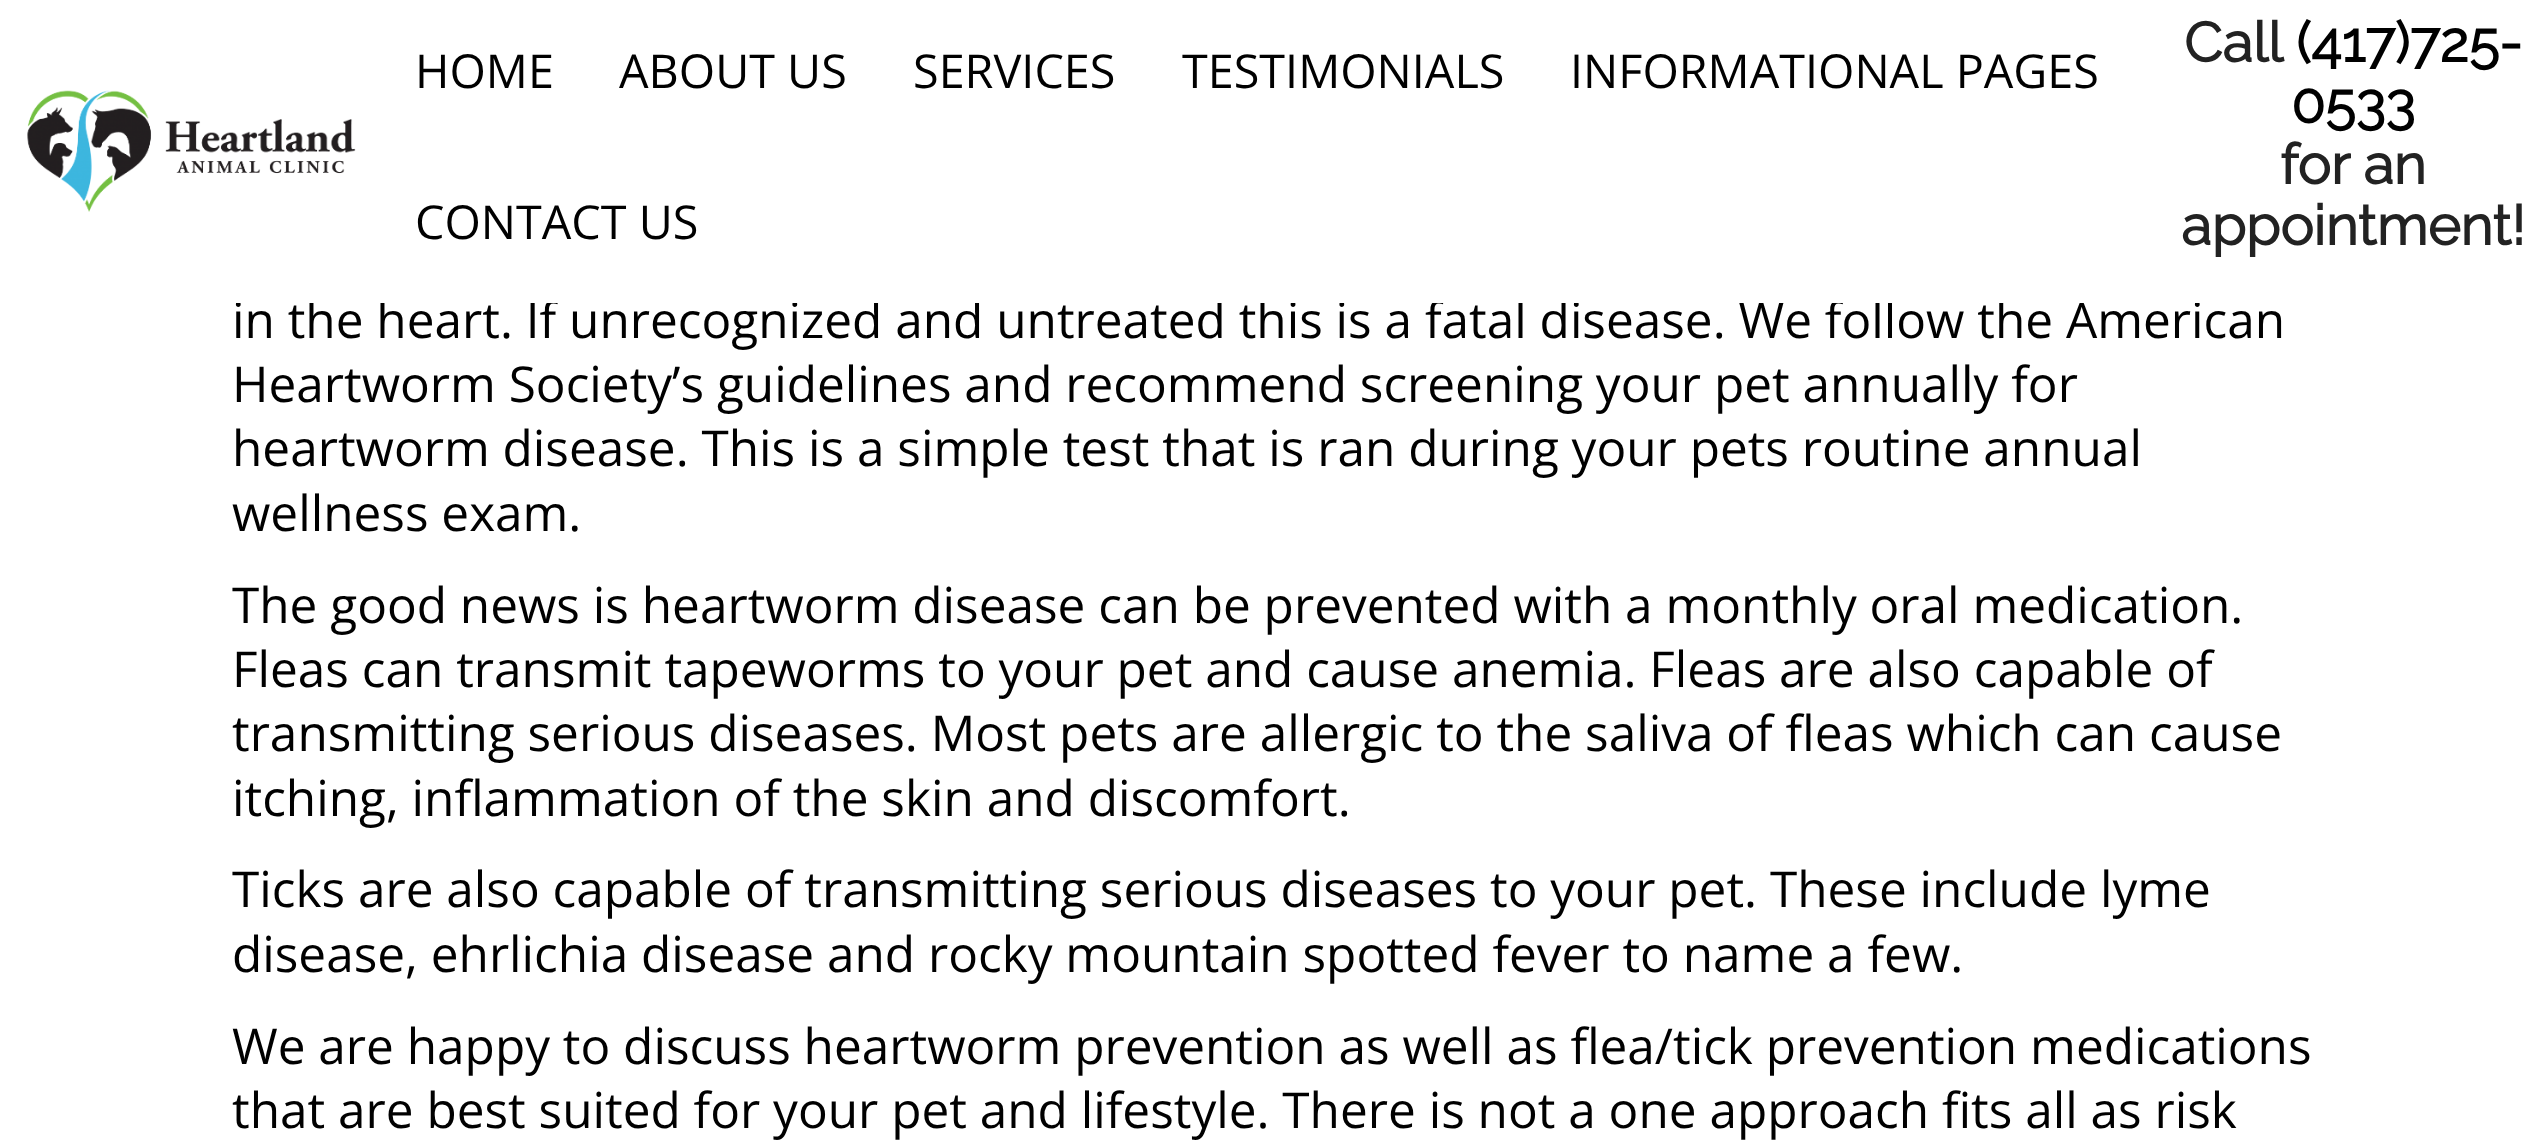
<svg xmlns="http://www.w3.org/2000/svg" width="2542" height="1141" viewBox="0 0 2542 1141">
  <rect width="100%" height="100%" fill="#ffffff"/>
  <text x="232" y="338" font-family="Open Sans" font-size="49.5" fill="#000000">in the heart. If unrecognized and untreated this is a fatal disease. We follow the American</text>
  <rect x="235" y="300" width="1965" height="3" fill="#ffffff"/>
  <image x="27" y="90" width="329" height="122" href="img1.png"/>
  <text x="415" y="88" font-family="Open Sans" font-size="46.75" fill="#000000">HOME</text>
  <text x="619" y="88" font-family="Open Sans" font-size="46.75" fill="#000000">ABOUT US</text>
  <text x="913" y="88" font-family="Open Sans" font-size="46.75" fill="#000000">SERVICES</text>
  <text x="1182" y="88" font-family="Open Sans" font-size="46.75" fill="#000000">TESTIMONIALS</text>
  <text x="1570" y="88" font-family="Open Sans" font-size="46.75" fill="#000000">INFORMATIONAL PAGES</text>
  <text x="415" y="239" font-family="Open Sans" font-size="46.75" fill="#000000">CONTACT US</text>
  <text x="2184" y="62" font-family="Raleway" font-size="55.75" font-weight="bold" fill="#222222">Call</text>
  <text x="2296" y="62" font-family="Raleway" font-size="55.75" font-weight="bold" fill="#000000">(417)725-</text>
  <text x="2291" y="123" font-family="Raleway" font-size="55.75" font-weight="bold" fill="#000000">0533</text>
  <text x="2280" y="184" font-family="Raleway" font-size="55.75" font-weight="bold" fill="#222222">for an</text>
  <text x="2181" y="245" font-family="Raleway" font-size="55.75" font-weight="bold" fill="#222222">appointment!</text>
  <text x="232" y="402" font-family="Open Sans" font-size="49.5" fill="#000000">Heartworm Society’s guidelines and recommend screening your pet annually for</text>
  <text x="232" y="466" font-family="Open Sans" font-size="49.5" fill="#000000">heartworm disease. This is a simple test that is ran during your pets routine annual</text>
  <text x="232" y="531" font-family="Open Sans" font-size="49.5" fill="#000000">wellness exam.</text>
  <text x="232" y="623" font-family="Open Sans" font-size="49.5" fill="#000000">The good news is heartworm disease can be prevented with a monthly oral medication.</text>
  <text x="232" y="687" font-family="Open Sans" font-size="49.5" fill="#000000">Fleas can transmit tapeworms to your pet and cause anemia. Fleas are also capable of</text>
  <text x="232" y="751" font-family="Open Sans" font-size="49.5" fill="#000000">transmitting serious diseases. Most pets are allergic to the saliva of fleas which can cause</text>
  <text x="232" y="816" font-family="Open Sans" font-size="49.5" fill="#000000">itching, inflammation of the skin and discomfort.</text>
  <text x="232" y="907" font-family="Open Sans" font-size="49.5" fill="#000000">Ticks are also capable of transmitting serious diseases to your pet. These include lyme</text>
  <text x="232" y="972" font-family="Open Sans" font-size="49.5" fill="#000000">disease, ehrlichia disease and rocky mountain spotted fever to name a few.</text>
  <text x="232" y="1064" font-family="Open Sans" font-size="49.5" fill="#000000">We are happy to discuss heartworm prevention as well as flea/tick prevention medications</text>
  <text x="232" y="1128" font-family="Open Sans" font-size="49.5" fill="#000000">that are best suited for your pet and lifestyle. There is not a one approach fits all as risk</text>
</svg>
